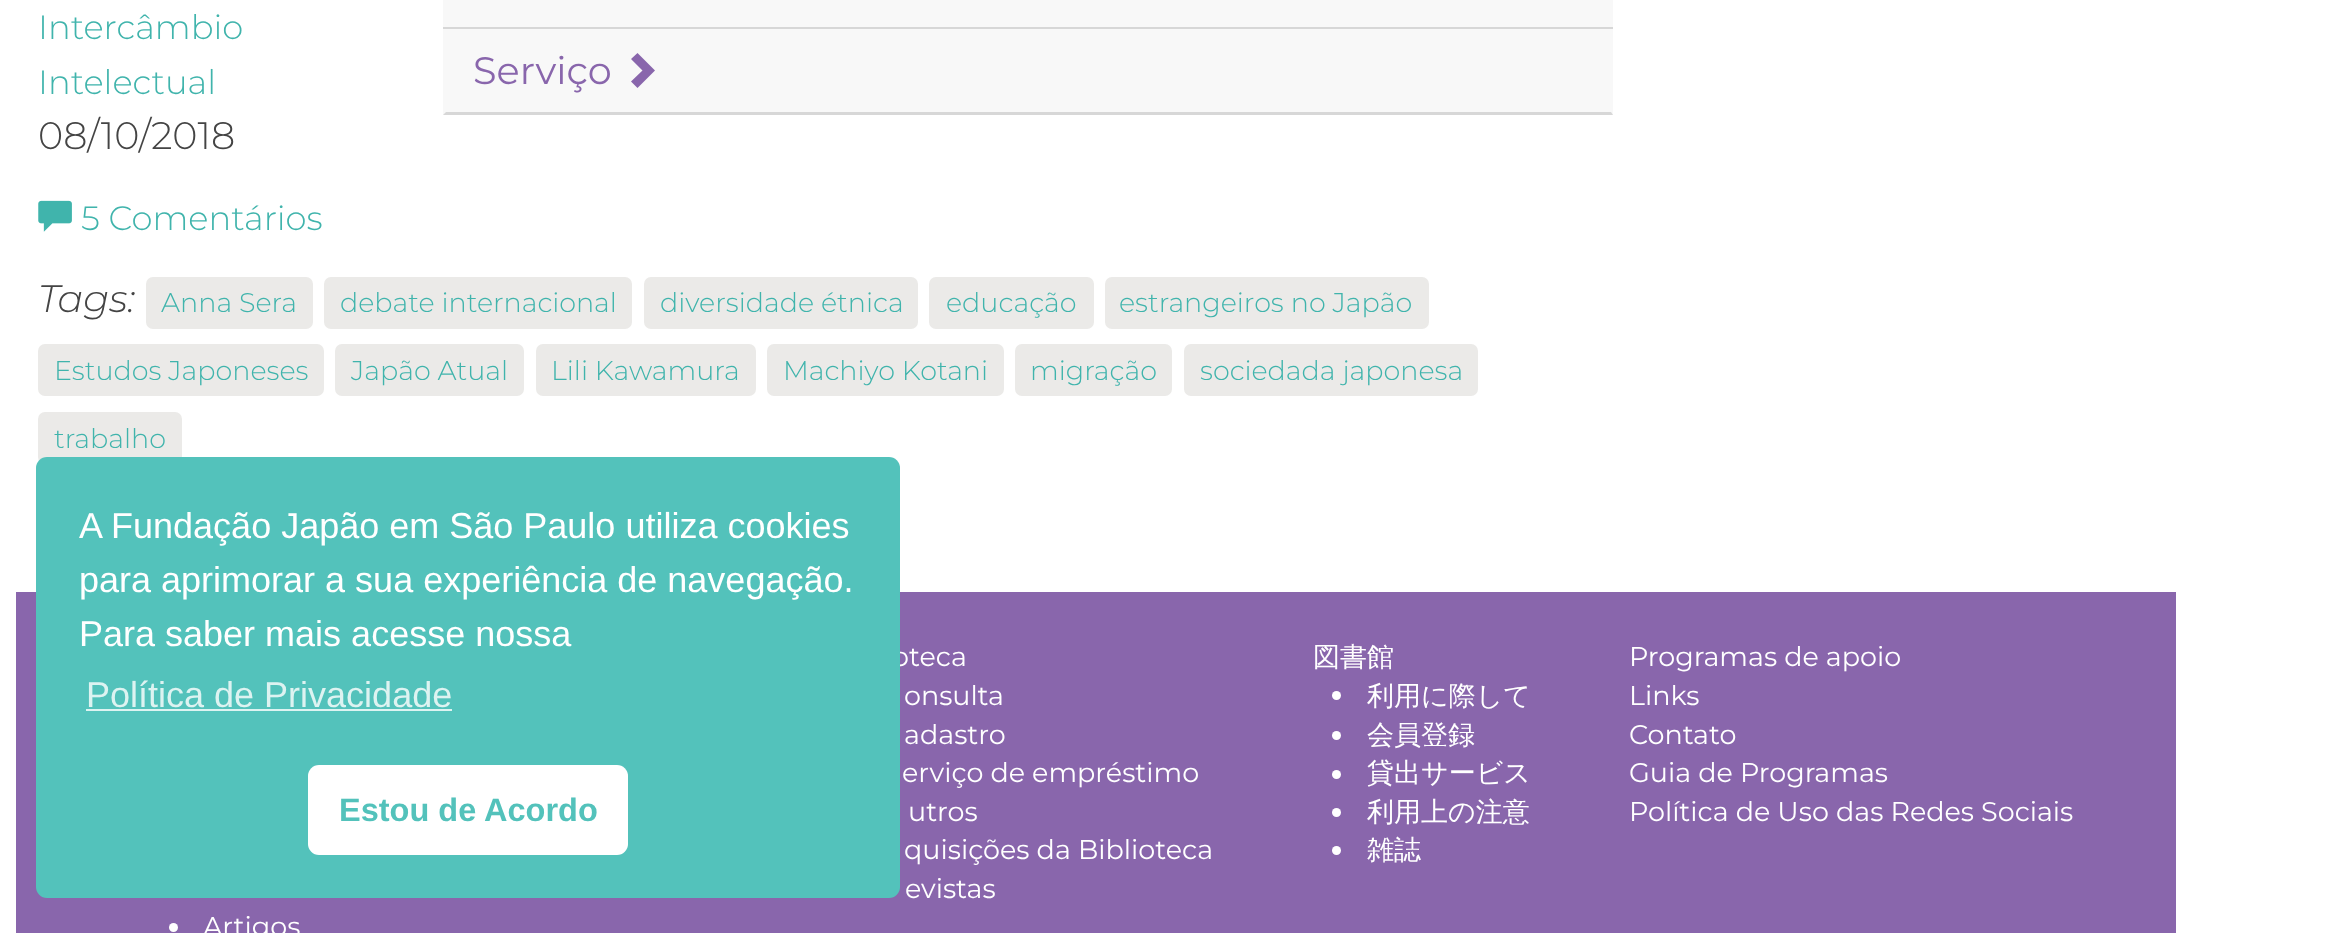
<svg xmlns="http://www.w3.org/2000/svg" width="2351" height="933" viewBox="0 0 2351 933">
  <rect width="100%" height="100%" fill="#ffffff"/>
  <text x="38" y="39" font-family="Montserrat" font-size="33.75" font-weight="300" fill="#40b4ac">Intercâmbio</text>
  <text x="38" y="94" font-family="Montserrat" font-size="33.75" font-weight="300" fill="#40b4ac">Intelectual</text>
  <text x="38" y="149" font-family="Montserrat" font-size="38.25" font-weight="300" fill="#444444">08/10/2018</text>
  <image x="38" y="200" width="34" height="32" href="img1.png"/>
  <text x="81" y="230" font-family="Montserrat" font-size="33.75" font-weight="300" fill="#40b4ac">5 Comentários</text>
  <rect x="443" y="0" width="1170" height="27" fill="#f8f8f8"/>
  <rect x="443" y="27" width="1170" height="2" fill="#d7d7d7"/>
  <rect x="443" y="29" width="1170" height="86" fill="#f8f8f8"/>
  <path d="M1613 115H443L446 112H1611Z" fill="#d7d7d7"/>
  <text x="473" y="84" font-family="Montserrat" font-size="38.25" fill="#8966ac">Serviço</text>
  <path d="M655 70.5L637.5 88L631 81.5L642.5 70.5L631 59L637.5 53Z" fill="#8966ac"/>
  <text x="38" y="312" font-family="Montserrat" font-size="38.25" font-weight="300" font-style="italic" fill="#444444">Tags:</text>
  <rect x="146" y="277" width="167" height="52" rx="7" fill="#ebeae8"/>
  <text x="161" y="312" font-family="Montserrat" font-size="27" font-weight="300" fill="#40b4ac">Anna Sera</text>
  <rect x="324" y="277" width="308" height="52" rx="7" fill="#ebeae8"/>
  <text x="340" y="312" font-family="Montserrat" font-size="27" font-weight="300" fill="#40b4ac">debate internacional</text>
  <rect x="644" y="277" width="274" height="52" rx="7" fill="#ebeae8"/>
  <text x="660" y="312" font-family="Montserrat" font-size="27" font-weight="300" fill="#40b4ac">diversidade étnica</text>
  <rect x="929" y="277" width="165" height="52" rx="7" fill="#ebeae8"/>
  <text x="946" y="312" font-family="Montserrat" font-size="27" font-weight="300" fill="#40b4ac">educação</text>
  <rect x="1105" y="277" width="324" height="52" rx="7" fill="#ebeae8"/>
  <text x="1119" y="312" font-family="Montserrat" font-size="27" font-weight="300" fill="#40b4ac">estrangeiros no Japão</text>
  <rect x="38" y="344" width="286" height="52" rx="7" fill="#ebeae8"/>
  <text x="54" y="380" font-family="Montserrat" font-size="27" font-weight="300" fill="#40b4ac">Estudos Japoneses</text>
  <rect x="335" y="344" width="189" height="52" rx="7" fill="#ebeae8"/>
  <text x="351" y="380" font-family="Montserrat" font-size="27" font-weight="300" fill="#40b4ac">Japão Atual</text>
  <rect x="536" y="344" width="220" height="52" rx="7" fill="#ebeae8"/>
  <text x="551" y="380" font-family="Montserrat" font-size="27" font-weight="300" fill="#40b4ac">Lili Kawamura</text>
  <rect x="767" y="344" width="237" height="52" rx="7" fill="#ebeae8"/>
  <text x="783" y="380" font-family="Montserrat" font-size="27" font-weight="300" fill="#40b4ac">Machiyo Kotani</text>
  <rect x="1015" y="344" width="157" height="52" rx="7" fill="#ebeae8"/>
  <text x="1030" y="380" font-family="Montserrat" font-size="27" font-weight="300" fill="#40b4ac">migração</text>
  <rect x="1184" y="344" width="294" height="52" rx="7" fill="#ebeae8"/>
  <text x="1200" y="380" font-family="Montserrat" font-size="27" font-weight="300" fill="#40b4ac">sociedada japonesa</text>
  <rect x="38" y="412" width="144" height="52" rx="7" fill="#ebeae8"/>
  <text x="54" y="448" font-family="Montserrat" font-size="27" font-weight="300" fill="#40b4ac">trabalho</text>
  <rect x="16" y="592" width="2160" height="341" fill="#8966ac"/>
  <text x="892" y="666" font-family="Montserrat" font-size="27" fill="#ffffff">oteca</text>
  <rect x="36" y="457" width="864" height="441" rx="11" fill="#53c2bb"/>
  <text x="79" y="538" font-family="Liberation Sans" font-size="36" fill="#ffffff">A Fundação Japão em São Paulo utiliza cookies</text>
  <text x="79" y="592" font-family="Liberation Sans" font-size="36" fill="#ffffff">para aprimorar a sua experiência de navegação.</text>
  <text x="79" y="646" font-family="Liberation Sans" font-size="36" fill="#ffffff">Para saber mais acesse nossa</text>
  <text x="86" y="707" font-family="Liberation Sans" font-size="36" fill="#ddf3f1">Política de Privacidade</text>
  <rect x="86" y="709" width="366" height="2" fill="#ddf3f1"/>
  <rect x="308" y="765" width="320" height="90" rx="11" fill="#ffffff"/>
  <text x="339" y="821" font-family="Liberation Sans" font-size="32.5" font-weight="bold" fill="#53c2bb">Estou de Acordo</text>
  <text x="904" y="705" font-family="Montserrat" font-size="27" fill="#ffffff">onsulta</text>
  <text x="904" y="744" font-family="Montserrat" font-size="27" fill="#ffffff">adastro</text>
  <text x="902" y="782" font-family="Montserrat" font-size="27" fill="#ffffff">erviço de empréstimo</text>
  <text x="908" y="821" font-family="Montserrat" font-size="27" fill="#ffffff">utros</text>
  <text x="904" y="859" font-family="Montserrat" font-size="27" fill="#ffffff">quisições da Biblioteca</text>
  <text x="905" y="898" font-family="Montserrat" font-size="27" fill="#ffffff">evistas</text>
  <text x="1313" y="666" font-family="WenQuanYi Zen Hei" font-size="27" font-weight="500" fill="#ffffff">図書館</text>
  <circle cx="1336.5" cy="695.5" r="4.5" fill="#ffffff"/>
  <text x="1367" y="705" font-family="WenQuanYi Zen Hei" font-size="27" font-weight="500" fill="#ffffff">利用に際して</text>
  <circle cx="1336.5" cy="735.5" r="4.5" fill="#ffffff"/>
  <text x="1367" y="744" font-family="WenQuanYi Zen Hei" font-size="27" font-weight="500" fill="#ffffff">会員登録</text>
  <circle cx="1336.5" cy="774.5" r="4.5" fill="#ffffff"/>
  <text x="1367" y="782" font-family="WenQuanYi Zen Hei" font-size="27" font-weight="500" fill="#ffffff">貸出サービス</text>
  <circle cx="1336.5" cy="812.5" r="4.5" fill="#ffffff"/>
  <text x="1367" y="821" font-family="WenQuanYi Zen Hei" font-size="27" font-weight="500" fill="#ffffff">利用上の注意</text>
  <circle cx="1336.5" cy="850.5" r="4.5" fill="#ffffff"/>
  <text x="1367" y="859" font-family="WenQuanYi Zen Hei" font-size="27" font-weight="500" fill="#ffffff">雑誌</text>
  <text x="1629" y="666" font-family="Montserrat" font-size="27" fill="#ffffff">Programas de apoio</text>
  <text x="1629" y="705" font-family="Montserrat" font-size="27" fill="#ffffff">Links</text>
  <text x="1629" y="744" font-family="Montserrat" font-size="27" fill="#ffffff">Contato</text>
  <text x="1629" y="782" font-family="Montserrat" font-size="27" fill="#ffffff">Guia de Programas</text>
  <text x="1629" y="821" font-family="Montserrat" font-size="27" fill="#ffffff">Política de Uso das Redes Sociais</text>
  <circle cx="173.5" cy="927.5" r="4.5" fill="#ffffff"/>
  <text x="203" y="936" font-family="Montserrat" font-size="27" fill="#ffffff">Artigos</text>
</svg>
